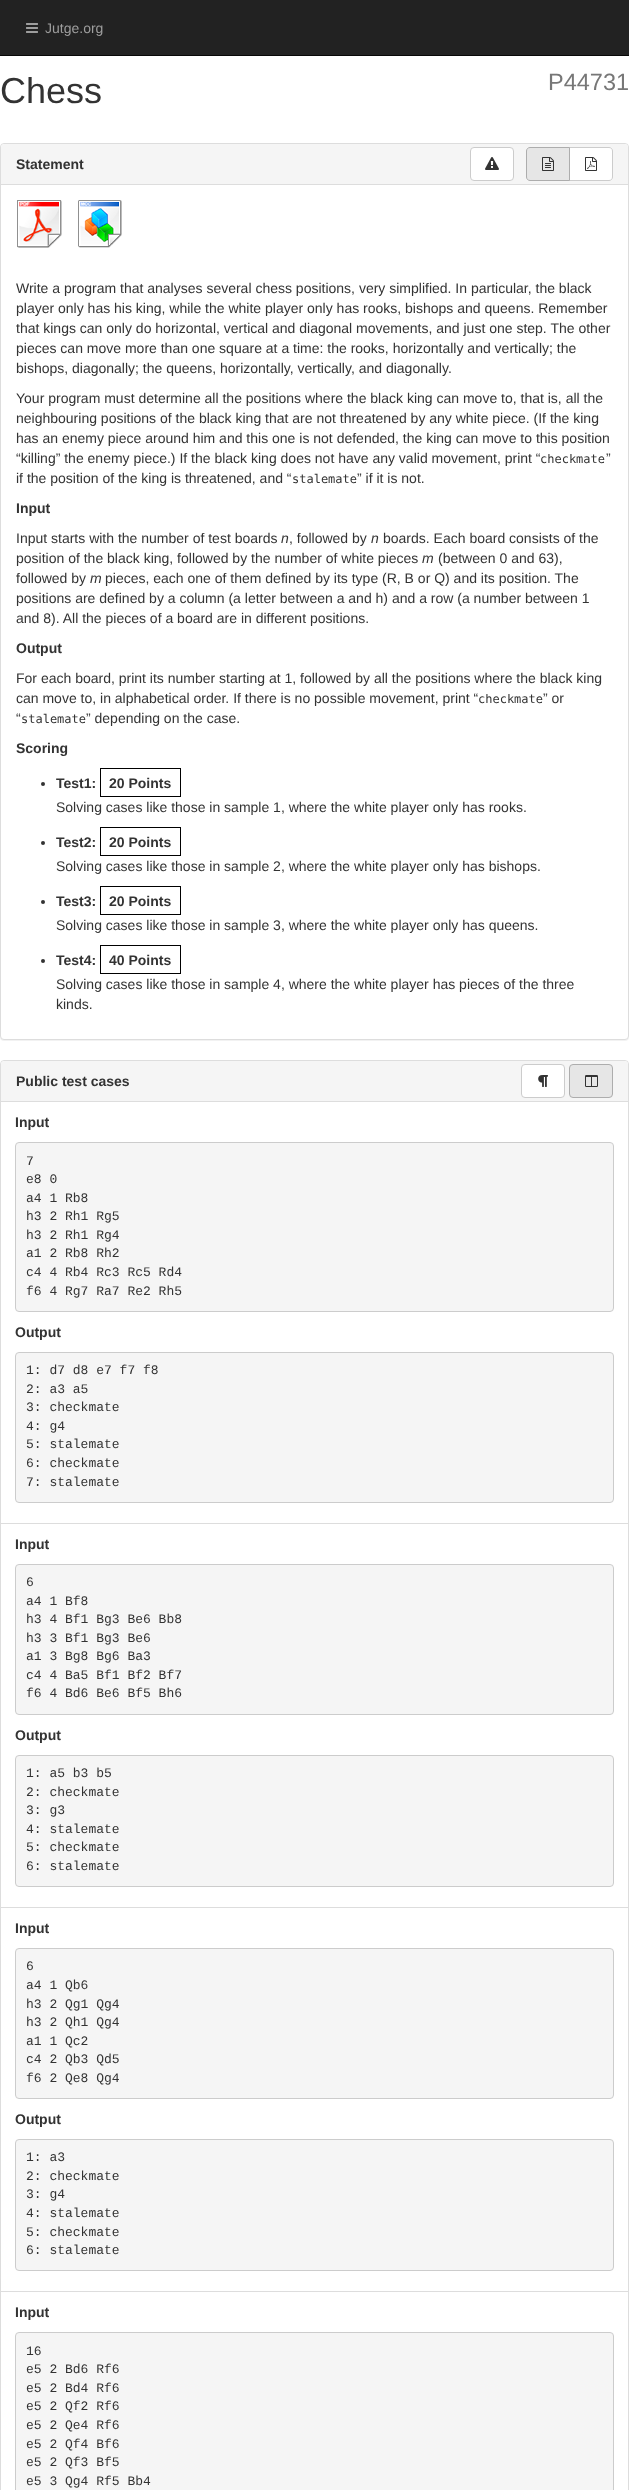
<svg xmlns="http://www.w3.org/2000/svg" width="629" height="2490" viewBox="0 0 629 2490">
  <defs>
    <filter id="blur1" x="-50%" y="-200%" width="200%" height="500%"><feGaussianBlur stdDeviation="0.5"/></filter>
  </defs>
  <rect width="100%" height="100%" fill="#ffffff"/>
  <rect x="0" y="0" width="629" height="55" fill="#222222"/>
  <rect x="0" y="55" width="629" height="1" fill="#080808"/>
  <image x="26" y="23" width="12" height="10" href="img1.png"/>
  <text x="45" y="33" font-family="Liberation Sans" font-size="14" fill="#9d9d9d">Jutge.org</text>
  <text x="0" y="103" font-family="Liberation Sans" font-size="36" fill="#333333">Chess</text>
  <text x="548" y="90" font-family="Liberation Sans" font-size="23.5" fill="#777777">P44731</text>
  <rect x="0" y="144" width="629" height="897" rx="4" fill="#000000" fill-opacity="0.05" filter="url(#blur1)"/>
  <rect x="0.5" y="143.5" width="628" height="896" rx="3.5" fill="#ffffff" stroke="#dddddd"/>
  <path d="M4 144H625C626.5 144 628 145.5 628 147V185H1V147C1 145.5 2.5 144 4 144Z" fill="#f5f5f5"/>
  <rect x="1" y="184" width="627" height="1" fill="#dddddd"/>
  <text x="16" y="169" font-family="Liberation Sans" font-size="14" font-weight="bold" fill="#333333">Statement</text>
  <rect x="470.5" y="147.5" width="43" height="33" rx="3.5" fill="#ffffff" stroke="#cccccc"/>
  <image x="485" y="157" width="14" height="13" href="img2.png"/>
  <path d="M569.5 147.5H609C611 147.5 612.5 149 612.5 151V177C612.5 179 611 180.5 609 180.5H569.5Z" fill="#ffffff" stroke="#cccccc"/>
  <path d="M530 147.5H569.5V180.5H530C528 180.5 526.5 179 526.5 177V151C526.5 149 528 147.5 530 147.5Z" fill="#e6e6e6" stroke="#adadad"/>
  <image x="542" y="157" width="12" height="14" href="img3.png"/>
  <image x="585" y="157" width="12" height="14" href="img4.png"/>
  <image x="17" y="200" width="45" height="48" href="img5.png"/>
  <image x="78" y="200" width="44" height="48" href="img6.png"/>
  <text x="16" y="293" font-family="Liberation Sans" font-size="14" fill="#333333">Write a program that analyses several chess positions, very simplified. In particular, the black</text>
  <text x="16" y="313" font-family="Liberation Sans" font-size="14" fill="#333333">player only has his king, while the white player only has rooks, bishops and queens. Remember</text>
  <text x="16" y="333" font-family="Liberation Sans" font-size="14" fill="#333333">that kings can only do horizontal, vertical and diagonal movements, and just one step. The other</text>
  <text x="16" y="353" font-family="Liberation Sans" font-size="14" fill="#333333">pieces can move more than one square at a time: the rooks, horizontally and vertically; the</text>
  <text x="16" y="373" font-family="Liberation Sans" font-size="14" fill="#333333">bishops, diagonally; the queens, horizontally, vertically, and diagonally.</text>
  <text x="16" y="403" font-family="Liberation Sans" font-size="14" fill="#333333">Your program must determine all the positions where the black king can move to, that is, all the</text>
  <text x="16" y="423" font-family="Liberation Sans" font-size="14" fill="#333333">neighbouring positions of the black king that are not threatened by any white piece. (If the king</text>
  <text x="16" y="443" font-family="Liberation Sans" font-size="14" fill="#333333">has an enemy piece around him and this one is not defended, the king can move to this position</text>
  <text x="16" y="463" font-family="Liberation Sans" font-size="14" fill="#333333">“killing” the enemy piece.) If the black king does not have any valid movement, print “</text>
  <text x="540" y="463" font-family="DejaVu Sans Mono" font-size="12" fill="#333333">checkmate</text>
  <text x="606" y="463" font-family="Liberation Sans" font-size="14" fill="#333333">”</text>
  <text x="16" y="483" font-family="Liberation Sans" font-size="14" fill="#333333">if the position of the king is threatened, and “</text>
  <text x="292" y="483" font-family="DejaVu Sans Mono" font-size="12" fill="#333333">stalemate</text>
  <text x="357" y="483" font-family="Liberation Sans" font-size="14" fill="#333333">” if it is not.</text>
  <text x="16" y="513" font-family="Liberation Sans" font-size="14" font-weight="bold" fill="#333333">Input</text>
  <text x="16" y="543" font-family="Liberation Sans" font-size="14" fill="#333333">Input starts with the number of test boards</text>
  <text x="281" y="543" font-family="Liberation Sans" font-size="14" font-style="italic" fill="#333333">n</text>
  <text x="289" y="543" font-family="Liberation Sans" font-size="14" fill="#333333">, followed by</text>
  <text x="371" y="543" font-family="Liberation Sans" font-size="14" font-style="italic" fill="#333333">n</text>
  <text x="383" y="543" font-family="Liberation Sans" font-size="14" fill="#333333">boards. Each board consists of the</text>
  <text x="16" y="563" font-family="Liberation Sans" font-size="14" fill="#333333">position of the black king, followed by the number of white pieces</text>
  <text x="422" y="563" font-family="Liberation Sans" font-size="14" font-style="italic" fill="#333333">m</text>
  <text x="438" y="563" font-family="Liberation Sans" font-size="14" fill="#333333">(between 0 and 63),</text>
  <text x="16" y="583" font-family="Liberation Sans" font-size="14" fill="#333333">followed by</text>
  <text x="90" y="583" font-family="Liberation Sans" font-size="14" font-style="italic" fill="#333333">m</text>
  <text x="105" y="583" font-family="Liberation Sans" font-size="14" fill="#333333">pieces, each one of them defined by its type (R, B or Q) and its position. The</text>
  <text x="16" y="603" font-family="Liberation Sans" font-size="14" fill="#333333">positions are defined by a column (a letter between a and h) and a row (a number between 1</text>
  <text x="16" y="623" font-family="Liberation Sans" font-size="14" fill="#333333">and 8). All the pieces of a board are in different positions.</text>
  <text x="16" y="653" font-family="Liberation Sans" font-size="14" font-weight="bold" fill="#333333">Output</text>
  <text x="16" y="683" font-family="Liberation Sans" font-size="14" fill="#333333">For each board, print its number starting at 1, followed by all the positions where the black king</text>
  <text x="16" y="703" font-family="Liberation Sans" font-size="14" fill="#333333">can move to, in alphabetical order. If there is no possible movement, print “</text>
  <text x="478" y="703" font-family="DejaVu Sans Mono" font-size="12" fill="#333333">checkmate</text>
  <text x="543" y="703" font-family="Liberation Sans" font-size="14" fill="#333333">” or</text>
  <text x="16" y="723" font-family="Liberation Sans" font-size="14" fill="#333333">“</text>
  <text x="21" y="723" font-family="DejaVu Sans Mono" font-size="12" fill="#333333">stalemate</text>
  <text x="86" y="723" font-family="Liberation Sans" font-size="14" fill="#333333">” depending on the case.</text>
  <text x="16" y="753" font-family="Liberation Sans" font-size="14" font-weight="bold" fill="#333333">Scoring</text>
  <circle cx="43" cy="784" r="2" fill="#333333"/>
  <text x="56" y="788" font-family="Liberation Sans" font-size="14" font-weight="bold" fill="#333333">Test1:</text>
  <rect x="100.5" y="768.5" width="80" height="28" fill="none" stroke="#000000"/>
  <text x="109" y="788" font-family="Liberation Sans" font-size="14" font-weight="bold" fill="#333333">‍20 Points ‍</text>
  <text x="56" y="812" font-family="Liberation Sans" font-size="14" fill="#333333">Solving cases like those in sample 1, where the white player only has rooks.</text>
  <circle cx="43" cy="843" r="2" fill="#333333"/>
  <text x="56" y="847" font-family="Liberation Sans" font-size="14" font-weight="bold" fill="#333333">Test2:</text>
  <rect x="100.5" y="827.5" width="80" height="28" fill="none" stroke="#000000"/>
  <text x="109" y="847" font-family="Liberation Sans" font-size="14" font-weight="bold" fill="#333333">‍20 Points ‍</text>
  <text x="56" y="871" font-family="Liberation Sans" font-size="14" fill="#333333">Solving cases like those in sample 2, where the white player only has bishops.</text>
  <circle cx="43" cy="902" r="2" fill="#333333"/>
  <text x="56" y="906" font-family="Liberation Sans" font-size="14" font-weight="bold" fill="#333333">Test3:</text>
  <rect x="100.5" y="886.5" width="80" height="28" fill="none" stroke="#000000"/>
  <text x="109" y="906" font-family="Liberation Sans" font-size="14" font-weight="bold" fill="#333333">‍20 Points ‍</text>
  <text x="56" y="930" font-family="Liberation Sans" font-size="14" fill="#333333">Solving cases like those in sample 3, where the white player only has queens.</text>
  <circle cx="43" cy="961" r="2" fill="#333333"/>
  <text x="56" y="965" font-family="Liberation Sans" font-size="14" font-weight="bold" fill="#333333">Test4:</text>
  <rect x="100.5" y="945.5" width="80" height="28" fill="none" stroke="#000000"/>
  <text x="109" y="965" font-family="Liberation Sans" font-size="14" font-weight="bold" fill="#333333">‍40 Points ‍</text>
  <text x="56" y="989" font-family="Liberation Sans" font-size="14" fill="#333333">Solving cases like those in sample 4, where the white player has pieces of the three</text>
  <text x="56" y="1009" font-family="Liberation Sans" font-size="14" fill="#333333">kinds.</text>
  <rect x="0.5" y="1060.5" width="628" height="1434" rx="3.5" fill="none" stroke="#dddddd"/>
  <path d="M4 1061H625C626.5 1061 628 1062.5 628 1064V1102H1V1064C1 1062.5 2.5 1061 4 1061Z" fill="#f5f5f5"/>
  <rect x="1" y="1101" width="627" height="1" fill="#dddddd"/>
  <text x="16" y="1086" font-family="Liberation Sans" font-size="14" font-weight="bold" fill="#333333">Public test cases</text>
  <rect x="521.5" y="1064.5" width="43" height="33" rx="3.5" fill="#ffffff" stroke="#cccccc"/>
  <image x="538" y="1075" width="10" height="12" href="img7.png"/>
  <rect x="569.5" y="1064.5" width="43" height="33" rx="3.5" fill="#e6e6e6" stroke="#adadad"/>
  <image x="585" y="1075" width="13" height="12" href="img8.png"/>
  <rect x="1" y="1523" width="627" height="1" fill="#dddddd"/>
  <text x="15" y="1127" font-family="Liberation Sans" font-size="14" font-weight="bold" fill="#333333">Input</text>
  <rect x="15.5" y="1142.5" width="598" height="169" rx="3.5" fill="#f5f5f5" stroke="#cccccc"/>
  <text x="26" y="1165" font-family="Liberation Mono" font-size="13" fill="#333333">7</text>
  <text x="26" y="1183" font-family="Liberation Mono" font-size="13" fill="#333333">e8 0</text>
  <text x="26" y="1202" font-family="Liberation Mono" font-size="13" fill="#333333">a4 1 Rb8</text>
  <text x="26" y="1220" font-family="Liberation Mono" font-size="13" fill="#333333">h3 2 Rh1 Rg5</text>
  <text x="26" y="1239" font-family="Liberation Mono" font-size="13" fill="#333333">h3 2 Rh1 Rg4</text>
  <text x="26" y="1257" font-family="Liberation Mono" font-size="13" fill="#333333">a1 2 Rb8 Rh2</text>
  <text x="26" y="1276" font-family="Liberation Mono" font-size="13" fill="#333333">c4 4 Rb4 Rc3 Rc5 Rd4</text>
  <text x="26" y="1295" font-family="Liberation Mono" font-size="13" fill="#333333">f6 4 Rg7 Ra7 Re2 Rh5</text>
  <text x="15" y="1337" font-family="Liberation Sans" font-size="14" font-weight="bold" fill="#333333">Output</text>
  <rect x="15.5" y="1352.5" width="598" height="150" rx="3.5" fill="#f5f5f5" stroke="#cccccc"/>
  <text x="26" y="1374" font-family="Liberation Mono" font-size="13" fill="#333333">1: d7 d8 e7 f7 f8</text>
  <text x="26" y="1393" font-family="Liberation Mono" font-size="13" fill="#333333">2: a3 a5</text>
  <text x="26" y="1411" font-family="Liberation Mono" font-size="13" fill="#333333">3: checkmate</text>
  <text x="26" y="1430" font-family="Liberation Mono" font-size="13" fill="#333333">4: g4</text>
  <text x="26" y="1448" font-family="Liberation Mono" font-size="13" fill="#333333">5: stalemate</text>
  <text x="26" y="1467" font-family="Liberation Mono" font-size="13" fill="#333333">6: checkmate</text>
  <text x="26" y="1486" font-family="Liberation Mono" font-size="13" fill="#333333">7: stalemate</text>
  <rect x="1" y="1907" width="627" height="1" fill="#dddddd"/>
  <text x="15" y="1549" font-family="Liberation Sans" font-size="14" font-weight="bold" fill="#333333">Input</text>
  <rect x="15.5" y="1564.5" width="598" height="150" rx="3.5" fill="#f5f5f5" stroke="#cccccc"/>
  <text x="26" y="1586" font-family="Liberation Mono" font-size="13" fill="#333333">6</text>
  <text x="26" y="1605" font-family="Liberation Mono" font-size="13" fill="#333333">a4 1 Bf8</text>
  <text x="26" y="1623" font-family="Liberation Mono" font-size="13" fill="#333333">h3 4 Bf1 Bg3 Be6 Bb8</text>
  <text x="26" y="1642" font-family="Liberation Mono" font-size="13" fill="#333333">h3 3 Bf1 Bg3 Be6</text>
  <text x="26" y="1660" font-family="Liberation Mono" font-size="13" fill="#333333">a1 3 Bg8 Bg6 Ba3</text>
  <text x="26" y="1679" font-family="Liberation Mono" font-size="13" fill="#333333">c4 4 Ba5 Bf1 Bf2 Bf7</text>
  <text x="26" y="1697" font-family="Liberation Mono" font-size="13" fill="#333333">f6 4 Bd6 Be6 Bf5 Bh6</text>
  <text x="15" y="1740" font-family="Liberation Sans" font-size="14" font-weight="bold" fill="#333333">Output</text>
  <rect x="15.5" y="1755.5" width="598" height="131" rx="3.5" fill="#f5f5f5" stroke="#cccccc"/>
  <text x="26" y="1777" font-family="Liberation Mono" font-size="13" fill="#333333">1: a5 b3 b5</text>
  <text x="26" y="1796" font-family="Liberation Mono" font-size="13" fill="#333333">2: checkmate</text>
  <text x="26" y="1814" font-family="Liberation Mono" font-size="13" fill="#333333">3: g3</text>
  <text x="26" y="1833" font-family="Liberation Mono" font-size="13" fill="#333333">4: stalemate</text>
  <text x="26" y="1851" font-family="Liberation Mono" font-size="13" fill="#333333">5: checkmate</text>
  <text x="26" y="1870" font-family="Liberation Mono" font-size="13" fill="#333333">6: stalemate</text>
  <text x="15" y="1933" font-family="Liberation Sans" font-size="14" font-weight="bold" fill="#333333">Input</text>
  <rect x="15.5" y="1948.5" width="598" height="150" rx="3.5" fill="#f5f5f5" stroke="#cccccc"/>
  <text x="26" y="1970" font-family="Liberation Mono" font-size="13" fill="#333333">6</text>
  <text x="26" y="1989" font-family="Liberation Mono" font-size="13" fill="#333333">a4 1 Qb6</text>
  <text x="26" y="2008" font-family="Liberation Mono" font-size="13" fill="#333333">h3 2 Qg1 Qg4</text>
  <text x="26" y="2026" font-family="Liberation Mono" font-size="13" fill="#333333">h3 2 Qh1 Qg4</text>
  <text x="26" y="2045" font-family="Liberation Mono" font-size="13" fill="#333333">a1 1 Qc2</text>
  <text x="26" y="2063" font-family="Liberation Mono" font-size="13" fill="#333333">c4 2 Qb3 Qd5</text>
  <text x="26" y="2082" font-family="Liberation Mono" font-size="13" fill="#333333">f6 2 Qe8 Qg4</text>
  <text x="15" y="2124" font-family="Liberation Sans" font-size="14" font-weight="bold" fill="#333333">Output</text>
  <rect x="15.5" y="2139.5" width="598" height="131" rx="3.5" fill="#f5f5f5" stroke="#cccccc"/>
  <text x="26" y="2161" font-family="Liberation Mono" font-size="13" fill="#333333">1: a3</text>
  <text x="26" y="2180" font-family="Liberation Mono" font-size="13" fill="#333333">2: checkmate</text>
  <text x="26" y="2198" font-family="Liberation Mono" font-size="13" fill="#333333">3: g4</text>
  <text x="26" y="2217" font-family="Liberation Mono" font-size="13" fill="#333333">4: stalemate</text>
  <text x="26" y="2236" font-family="Liberation Mono" font-size="13" fill="#333333">5: checkmate</text>
  <text x="26" y="2254" font-family="Liberation Mono" font-size="13" fill="#333333">6: stalemate</text>
  <rect x="1" y="2291" width="627" height="1" fill="#dddddd"/>
  <text x="15" y="2317" font-family="Liberation Sans" font-size="14" font-weight="bold" fill="#333333">Input</text>
  <rect x="15.5" y="2332.5" width="598" height="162" rx="3.5" fill="#f5f5f5" stroke="#cccccc"/>
  <text x="26" y="2355" font-family="Liberation Mono" font-size="13" fill="#333333">16</text>
  <text x="26" y="2373" font-family="Liberation Mono" font-size="13" fill="#333333">e5 2 Bd6 Rf6</text>
  <text x="26" y="2392" font-family="Liberation Mono" font-size="13" fill="#333333">e5 2 Bd4 Rf6</text>
  <text x="26" y="2410" font-family="Liberation Mono" font-size="13" fill="#333333">e5 2 Qf2 Rf6</text>
  <text x="26" y="2429" font-family="Liberation Mono" font-size="13" fill="#333333">e5 2 Qe4 Rf6</text>
  <text x="26" y="2448" font-family="Liberation Mono" font-size="13" fill="#333333">e5 2 Qf4 Bf6</text>
  <text x="26" y="2466" font-family="Liberation Mono" font-size="13" fill="#333333">e5 2 Qf3 Bf5</text>
  <text x="26" y="2485" font-family="Liberation Mono" font-size="13" fill="#333333">e5 3 Qg4 Rf5 Bb4</text>
</svg>
